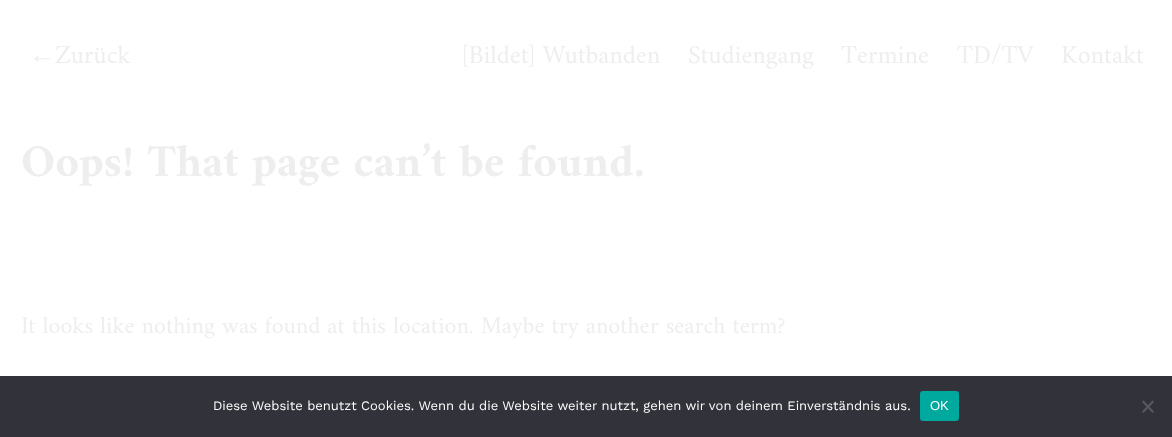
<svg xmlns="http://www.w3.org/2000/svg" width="1172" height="437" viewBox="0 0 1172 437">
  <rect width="100%" height="100%" fill="#ffffff"/>
  <text x="29" y="63" font-family="Liberation Serif" font-size="26" fill="#eeeeee">←</text>
  <text x="55" y="63" font-family="Amiri" font-size="26" fill="#eeeeee">Zurück</text>
  <text x="462" y="63" font-family="Amiri" font-size="26" fill="#eeeeee">[Bildet] Wutbanden</text>
  <text x="688" y="63" font-family="Amiri" font-size="26" fill="#eeeeee">Studiengang</text>
  <text x="841" y="63" font-family="Amiri" font-size="26" fill="#eeeeee">Termine</text>
  <text x="957" y="63" font-family="Amiri" font-size="26" fill="#eeeeee">TD/TV</text>
  <text x="1061" y="63" font-family="Amiri" font-size="26" fill="#eeeeee">Kontakt</text>
  <text x="21" y="176" font-family="Amiri" font-size="46" font-weight="bold" fill="#eeeeee">Oops! That page can’t be found.</text>
  <text x="21" y="333" font-family="Amiri" font-size="24" fill="#eeeeee">It looks like nothing was found at this location. Maybe try another search term?</text>
  <rect x="0" y="376" width="1172" height="61" fill="#32323a"/>
  <text x="213" y="410" font-family="Work Sans" font-size="13" fill="#ffffff">Diese Website benutzt Cookies. Wenn du die Website weiter nutzt, gehen wir von deinem Einverständnis aus.</text>
  <rect x="920" y="391" width="39" height="30" rx="3" fill="#00a99d"/>
  <text x="930" y="410" font-family="Liberation Sans" font-size="13" fill="#ffffff">OK</text>
  <path d="M1152.5 400.5L1154 402L1143.5 413L1142 411.5Z" fill="#59595d"/>
  <path d="M1142 402L1143.5 400.5L1154 411.5L1152.5 413Z" fill="#59595d"/>
</svg>
